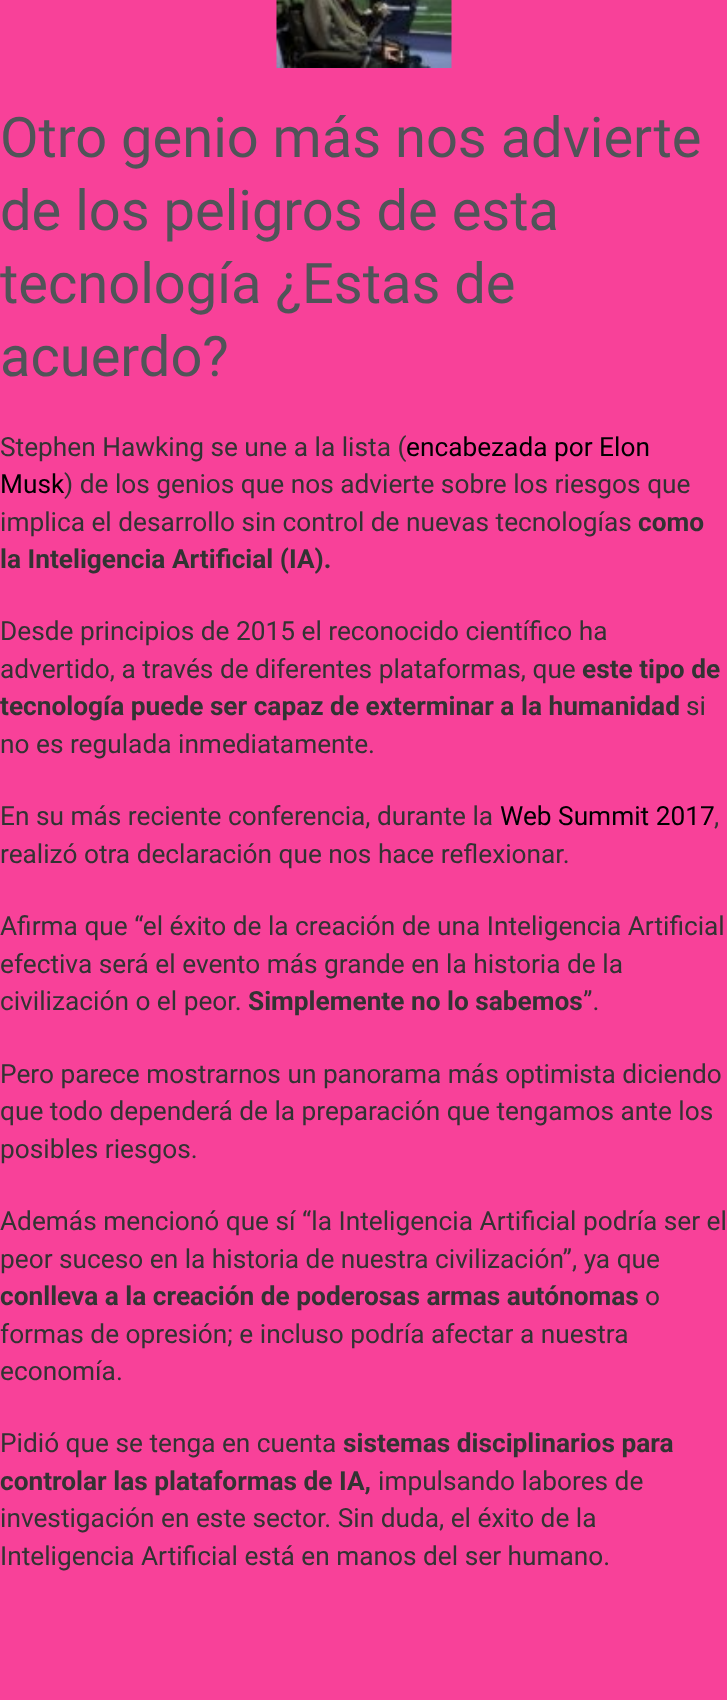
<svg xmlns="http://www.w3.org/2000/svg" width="727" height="1700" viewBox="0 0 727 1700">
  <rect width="100%" height="100%" fill="#f84199"/>
  <image x="276" y="0" width="176" height="68" href="img1.png"/>
  <text x="0" y="157" font-family="Roboto" font-size="56" fill="#505458">Otro genio más nos advierte</text>
  <text x="0" y="230" font-family="Roboto" font-size="56" fill="#505458">de los peligros de esta</text>
  <text x="0" y="303" font-family="Roboto" font-size="56" fill="#505458">tecnología ¿Estas de</text>
  <text x="0" y="376" font-family="Roboto" font-size="56" fill="#505458">acuerdo?</text>
  <text x="0" y="456" font-family="Roboto" font-size="26.25" fill="#333333">Stephen Hawking se une a la lista (</text>
  <text x="406" y="456" font-family="Roboto" font-size="26.25" fill="#000000">encabezada por Elon</text>
  <text x="0" y="493" font-family="Roboto" font-size="26.25" fill="#000000">Musk</text>
  <text x="64" y="493" font-family="Roboto" font-size="26.25" fill="#333333">) de los genios que nos advierte sobre los riesgos que</text>
  <text x="0" y="531" font-family="Roboto" font-size="26.25" fill="#333333">implica el desarrollo sin control de nuevas tecnologías</text>
  <text x="638" y="531" font-family="Roboto" font-size="26.25" font-weight="bold" fill="#333333">como</text>
  <text x="0" y="568" font-family="Roboto" font-size="26.25" font-weight="bold" fill="#333333">la Inteligencia Artificial (IA).</text>
  <text x="0" y="640" font-family="Roboto" font-size="26.25" fill="#333333">Desde principios de 2015 el reconocido científico ha</text>
  <text x="0" y="678" font-family="Roboto" font-size="26.25" fill="#333333">advertido, a través de diferentes plataformas, que</text>
  <text x="582" y="678" font-family="Roboto" font-size="26.25" font-weight="bold" fill="#333333">este tipo de</text>
  <text x="0" y="715" font-family="Roboto" font-size="26.25" font-weight="bold" fill="#333333">tecnología puede ser capaz de exterminar a la humanidad</text>
  <text x="686" y="715" font-family="Roboto" font-size="26.25" fill="#333333">si</text>
  <text x="0" y="753" font-family="Roboto" font-size="26.25" fill="#333333">no es regulada inmediatamente.</text>
  <text x="0" y="825" font-family="Roboto" font-size="26.25" fill="#333333">En su más reciente conferencia, durante la</text>
  <text x="500" y="825" font-family="Roboto" font-size="26.25" fill="#000000">Web Summit 2017</text>
  <text x="714" y="825" font-family="Roboto" font-size="26.25" fill="#333333">,</text>
  <text x="0" y="863" font-family="Roboto" font-size="26.25" fill="#333333">realizó otra declaración que nos hace reflexionar.</text>
  <text x="0" y="935" font-family="Roboto" font-size="26.25" fill="#333333">Afirma que “el éxito de la creación de una Inteligencia Artificial</text>
  <text x="0" y="973" font-family="Roboto" font-size="26.25" fill="#333333">efectiva será el evento más grande en la historia de la</text>
  <text x="0" y="1010" font-family="Roboto" font-size="26.25" fill="#333333">civilización o el peor.</text>
  <text x="248" y="1010" font-family="Roboto" font-size="26.25" font-weight="bold" fill="#333333">Simplemente no lo sabemos</text>
  <text x="583" y="1010" font-family="Roboto" font-size="26.25" fill="#333333">”.</text>
  <text x="0" y="1083" font-family="Roboto" font-size="26.25" fill="#333333">Pero parece mostrarnos un panorama más optimista diciendo</text>
  <text x="0" y="1120" font-family="Roboto" font-size="26.25" fill="#333333">que todo dependerá de la preparación que tengamos ante los</text>
  <text x="0" y="1158" font-family="Roboto" font-size="26.25" fill="#333333">posibles riesgos.</text>
  <text x="0" y="1230" font-family="Roboto" font-size="26.25" fill="#333333">Además mencionó que sí “la Inteligencia Artificial podría ser el</text>
  <text x="0" y="1268" font-family="Roboto" font-size="26.25" fill="#333333">peor suceso en la historia de nuestra civilización”, ya que</text>
  <text x="0" y="1305" font-family="Roboto" font-size="26.25" font-weight="bold" fill="#333333">conlleva a la creación de poderosas armas autónomas</text>
  <text x="645" y="1305" font-family="Roboto" font-size="26.25" fill="#333333">o</text>
  <text x="0" y="1343" font-family="Roboto" font-size="26.25" fill="#333333">formas de opresión; e incluso podría afectar a nuestra</text>
  <text x="0" y="1380" font-family="Roboto" font-size="26.25" fill="#333333">economía.</text>
  <text x="0" y="1452" font-family="Roboto" font-size="26.25" fill="#333333">Pidió que se tenga en cuenta</text>
  <text x="343" y="1452" font-family="Roboto" font-size="26.25" font-weight="bold" fill="#333333">sistemas disciplinarios para</text>
  <text x="0" y="1490" font-family="Roboto" font-size="26.25" font-weight="bold" fill="#333333">controlar las plataformas de IA,</text>
  <text x="378" y="1490" font-family="Roboto" font-size="26.25" fill="#333333">impulsando labores de</text>
  <text x="0" y="1527" font-family="Roboto" font-size="26.25" fill="#333333">investigación en este sector. Sin duda, el éxito de la</text>
  <text x="0" y="1565" font-family="Roboto" font-size="26.25" fill="#333333">Inteligencia Artificial está en manos del ser humano.</text>
</svg>
